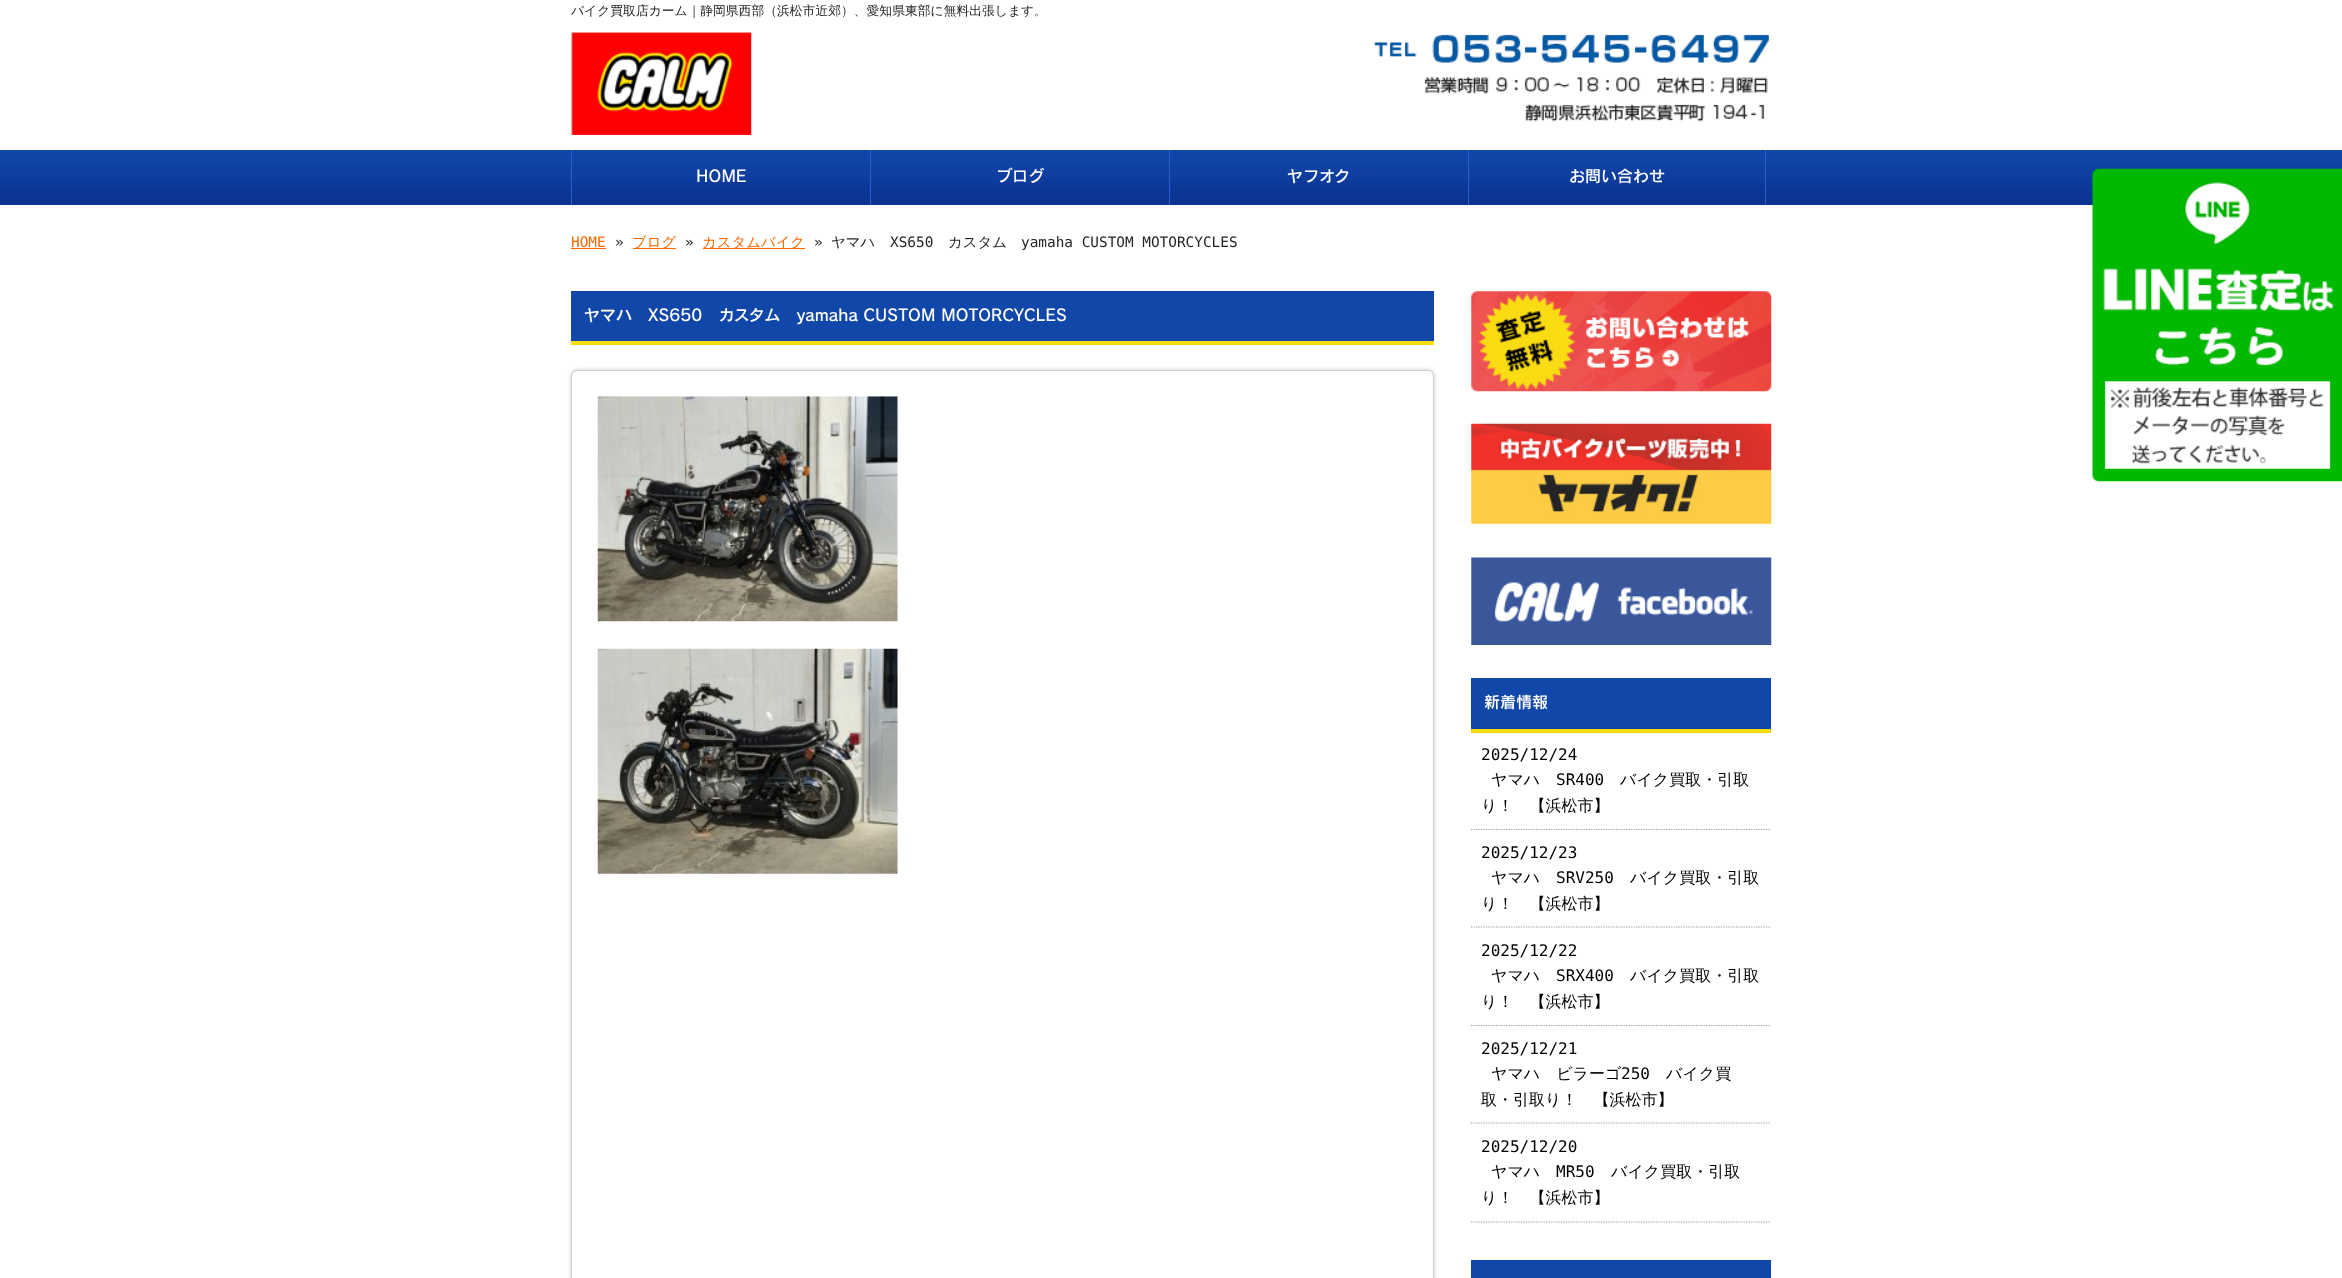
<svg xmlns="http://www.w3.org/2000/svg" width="2342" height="1278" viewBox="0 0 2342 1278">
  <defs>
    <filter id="blur1" x="-50%" y="-200%" width="200%" height="500%"><feGaussianBlur stdDeviation="2"/></filter>
  </defs>
  <rect width="100%" height="100%" fill="#ffffff"/>
  <text x="571" y="15" font-family="WenQuanYi Zen Hei" font-size="12.8" font-weight="500" fill="#252525">バイク買取店カーム｜静岡県西部（浜松市近郊）、愛知県東部に無料出張します。</text>
  <image x="571" y="32" width="181" height="103" href="img1.png"/>
  <image x="1373" y="34" width="396" height="88" href="img2.png"/>
  <image x="0" y="150" width="2342" height="55" href="img3.png"/>
  <rect x="571" y="150" width="1" height="55" fill="#2d5ccd"/>
  <text x="696" y="182" font-family="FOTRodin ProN" font-size="16" font-weight="600" fill="#ffffff">HOME</text>
  <rect x="870" y="150" width="1" height="55" fill="#2d5ccd"/>
  <text x="996" y="182" font-family="FOTRodin ProN" font-size="16" font-weight="600" fill="#ffffff">ブログ</text>
  <rect x="1169" y="150" width="1" height="55" fill="#2d5ccd"/>
  <text x="1287" y="182" font-family="FOTRodin ProN" font-size="16" font-weight="600" fill="#ffffff">ヤフオク</text>
  <rect x="1765" y="150" width="1" height="55" fill="#2d5ccd"/>
  <rect x="1468" y="150" width="1" height="55" fill="#2d5ccd"/>
  <text x="1569" y="182" font-family="FOTRodin ProN" font-size="16" font-weight="600" fill="#ffffff">お問い合わせ</text>
  <text x="571" y="247" font-family="DejaVu Sans Mono" font-size="14.4" fill="#ff6600">HOME</text>
  <rect x="571" y="248" width="35" height="1" fill="#ff6600"/>
  <text x="615" y="247" font-family="DejaVu Sans Mono" font-size="14.4" fill="#252525">»</text>
  <rect x="633" y="248" width="43" height="1" fill="#ff6600"/>
  <text x="632" y="247" font-family="WenQuanYi Zen Hei" font-size="14.4" font-weight="500" fill="#ff6600">ブログ</text>
  <text x="685" y="247" font-family="DejaVu Sans Mono" font-size="14.4" fill="#252525">»</text>
  <rect x="703" y="248" width="102" height="1" fill="#ff6600"/>
  <text x="702" y="247" font-family="WenQuanYi Zen Hei" font-size="14.4" font-weight="500" fill="#ff6600">カスタムバイク</text>
  <text x="814" y="247" font-family="DejaVu Sans Mono" font-size="14.4" fill="#252525">»</text>
  <text x="831" y="247" font-family="WenQuanYi Zen Hei" font-size="14.4" font-weight="500" fill="#252525">ヤマハ</text>
  <text x="890" y="247" font-family="DejaVu Sans Mono" font-size="14.4" fill="#252525">XS650</text>
  <text x="948" y="247" font-family="WenQuanYi Zen Hei" font-size="14.4" font-weight="500" fill="#252525">カスタム</text>
  <text x="1021" y="247" font-family="DejaVu Sans Mono" font-size="14.4" fill="#252525">yamaha CUSTOM MOTORCYCLES</text>
  <image x="2092" y="168" width="250" height="314" href="img4.png"/>
  <rect x="571" y="291" width="863" height="50" fill="#1147a9"/>
  <rect x="571" y="341" width="863" height="4" fill="#fadc13"/>
  <text x="584" y="321" font-family="FOTRodin ProN" font-size="16" font-weight="600" fill="#ffffff">ヤマハ　XS650　カスタム　yamaha CUSTOM MOTORCYCLES</text>
  <rect x="571" y="370" width="863" height="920" rx="6" fill="#cccccc" filter="url(#blur1)"/>
  <rect x="571.5" y="370.5" width="862" height="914" rx="5.5" fill="#ffffff" stroke="#cccccc"/>
  <image x="597" y="396" width="301" height="226" href="img5.png"/>
  <image x="597" y="648" width="301" height="226" href="img6.png"/>
  <image x="1471" y="291" width="301" height="101" href="img7.png"/>
  <image x="1471" y="423" width="301" height="101" href="img8.png"/>
  <image x="1471" y="557" width="301" height="88" href="img9.png"/>
  <rect x="1471" y="678" width="300" height="51" fill="#1147a9"/>
  <rect x="1471" y="729" width="300" height="4" fill="#fadc13"/>
  <text x="1484" y="708" font-family="FOTRodin ProN" font-size="16" font-weight="600" fill="#ffffff">新着情報</text>
  <path d="M1471 829.5H1771" fill="none" stroke="#999999" stroke-width="1.2" stroke-dasharray="1.25 1.25"/>
  <text x="1481" y="760" font-family="DejaVu Sans Mono" font-size="16" fill="#000000">2025/12/24</text>
  <text x="1491" y="785" font-family="WenQuanYi Zen Hei" font-size="16" font-weight="500" fill="#000000">ヤマハ</text>
  <text x="1556" y="785" font-family="DejaVu Sans Mono" font-size="16" fill="#000000">SR400</text>
  <text x="1620" y="785" font-family="WenQuanYi Zen Hei" font-size="16" font-weight="500" fill="#000000">バイク買取・引取</text>
  <text x="1481" y="811" font-family="WenQuanYi Zen Hei" font-size="16" font-weight="500" fill="#000000">り！　【浜松市】</text>
  <path d="M1471 927H1771" fill="none" stroke="#999999" stroke-width="1.2" stroke-dasharray="1.25 1.25"/>
  <text x="1481" y="858" font-family="DejaVu Sans Mono" font-size="16" fill="#000000">2025/12/23</text>
  <text x="1491" y="883" font-family="WenQuanYi Zen Hei" font-size="16" font-weight="500" fill="#000000">ヤマハ</text>
  <text x="1556" y="883" font-family="DejaVu Sans Mono" font-size="16" fill="#000000">SRV250</text>
  <text x="1630" y="883" font-family="WenQuanYi Zen Hei" font-size="16" font-weight="500" fill="#000000">バイク買取・引取</text>
  <text x="1481" y="909" font-family="WenQuanYi Zen Hei" font-size="16" font-weight="500" fill="#000000">り！　【浜松市】</text>
  <path d="M1471 1025.5H1771" fill="none" stroke="#999999" stroke-width="1.2" stroke-dasharray="1.25 1.25"/>
  <text x="1481" y="956" font-family="DejaVu Sans Mono" font-size="16" fill="#000000">2025/12/22</text>
  <text x="1491" y="981" font-family="WenQuanYi Zen Hei" font-size="16" font-weight="500" fill="#000000">ヤマハ</text>
  <text x="1556" y="981" font-family="DejaVu Sans Mono" font-size="16" fill="#000000">SRX400</text>
  <text x="1630" y="981" font-family="WenQuanYi Zen Hei" font-size="16" font-weight="500" fill="#000000">バイク買取・引取</text>
  <text x="1481" y="1007" font-family="WenQuanYi Zen Hei" font-size="16" font-weight="500" fill="#000000">り！　【浜松市】</text>
  <path d="M1471 1123H1771" fill="none" stroke="#999999" stroke-width="1.2" stroke-dasharray="1.25 1.25"/>
  <text x="1481" y="1054" font-family="DejaVu Sans Mono" font-size="16" fill="#000000">2025/12/21</text>
  <text x="1491" y="1079" font-family="WenQuanYi Zen Hei" font-size="16" font-weight="500" fill="#000000">ヤマハ　ビラーゴ</text>
  <text x="1621" y="1079" font-family="DejaVu Sans Mono" font-size="16" fill="#000000">250</text>
  <text x="1666" y="1079" font-family="WenQuanYi Zen Hei" font-size="16" font-weight="500" fill="#000000">バイク買</text>
  <text x="1481" y="1105" font-family="WenQuanYi Zen Hei" font-size="16" font-weight="500" fill="#000000">取・引取り！　【浜松市】</text>
  <path d="M1471 1222H1771" fill="none" stroke="#999999" stroke-width="1.2" stroke-dasharray="1.25 1.25"/>
  <text x="1481" y="1152" font-family="DejaVu Sans Mono" font-size="16" fill="#000000">2025/12/20</text>
  <text x="1491" y="1177" font-family="WenQuanYi Zen Hei" font-size="16" font-weight="500" fill="#000000">ヤマハ</text>
  <text x="1556" y="1177" font-family="DejaVu Sans Mono" font-size="16" fill="#000000">MR50</text>
  <text x="1611" y="1177" font-family="WenQuanYi Zen Hei" font-size="16" font-weight="500" fill="#000000">バイク買取・引取</text>
  <text x="1481" y="1203" font-family="WenQuanYi Zen Hei" font-size="16" font-weight="500" fill="#000000">り！　【浜松市】</text>
  <rect x="1471" y="1260" width="300" height="18" fill="#1147a9"/>
</svg>
